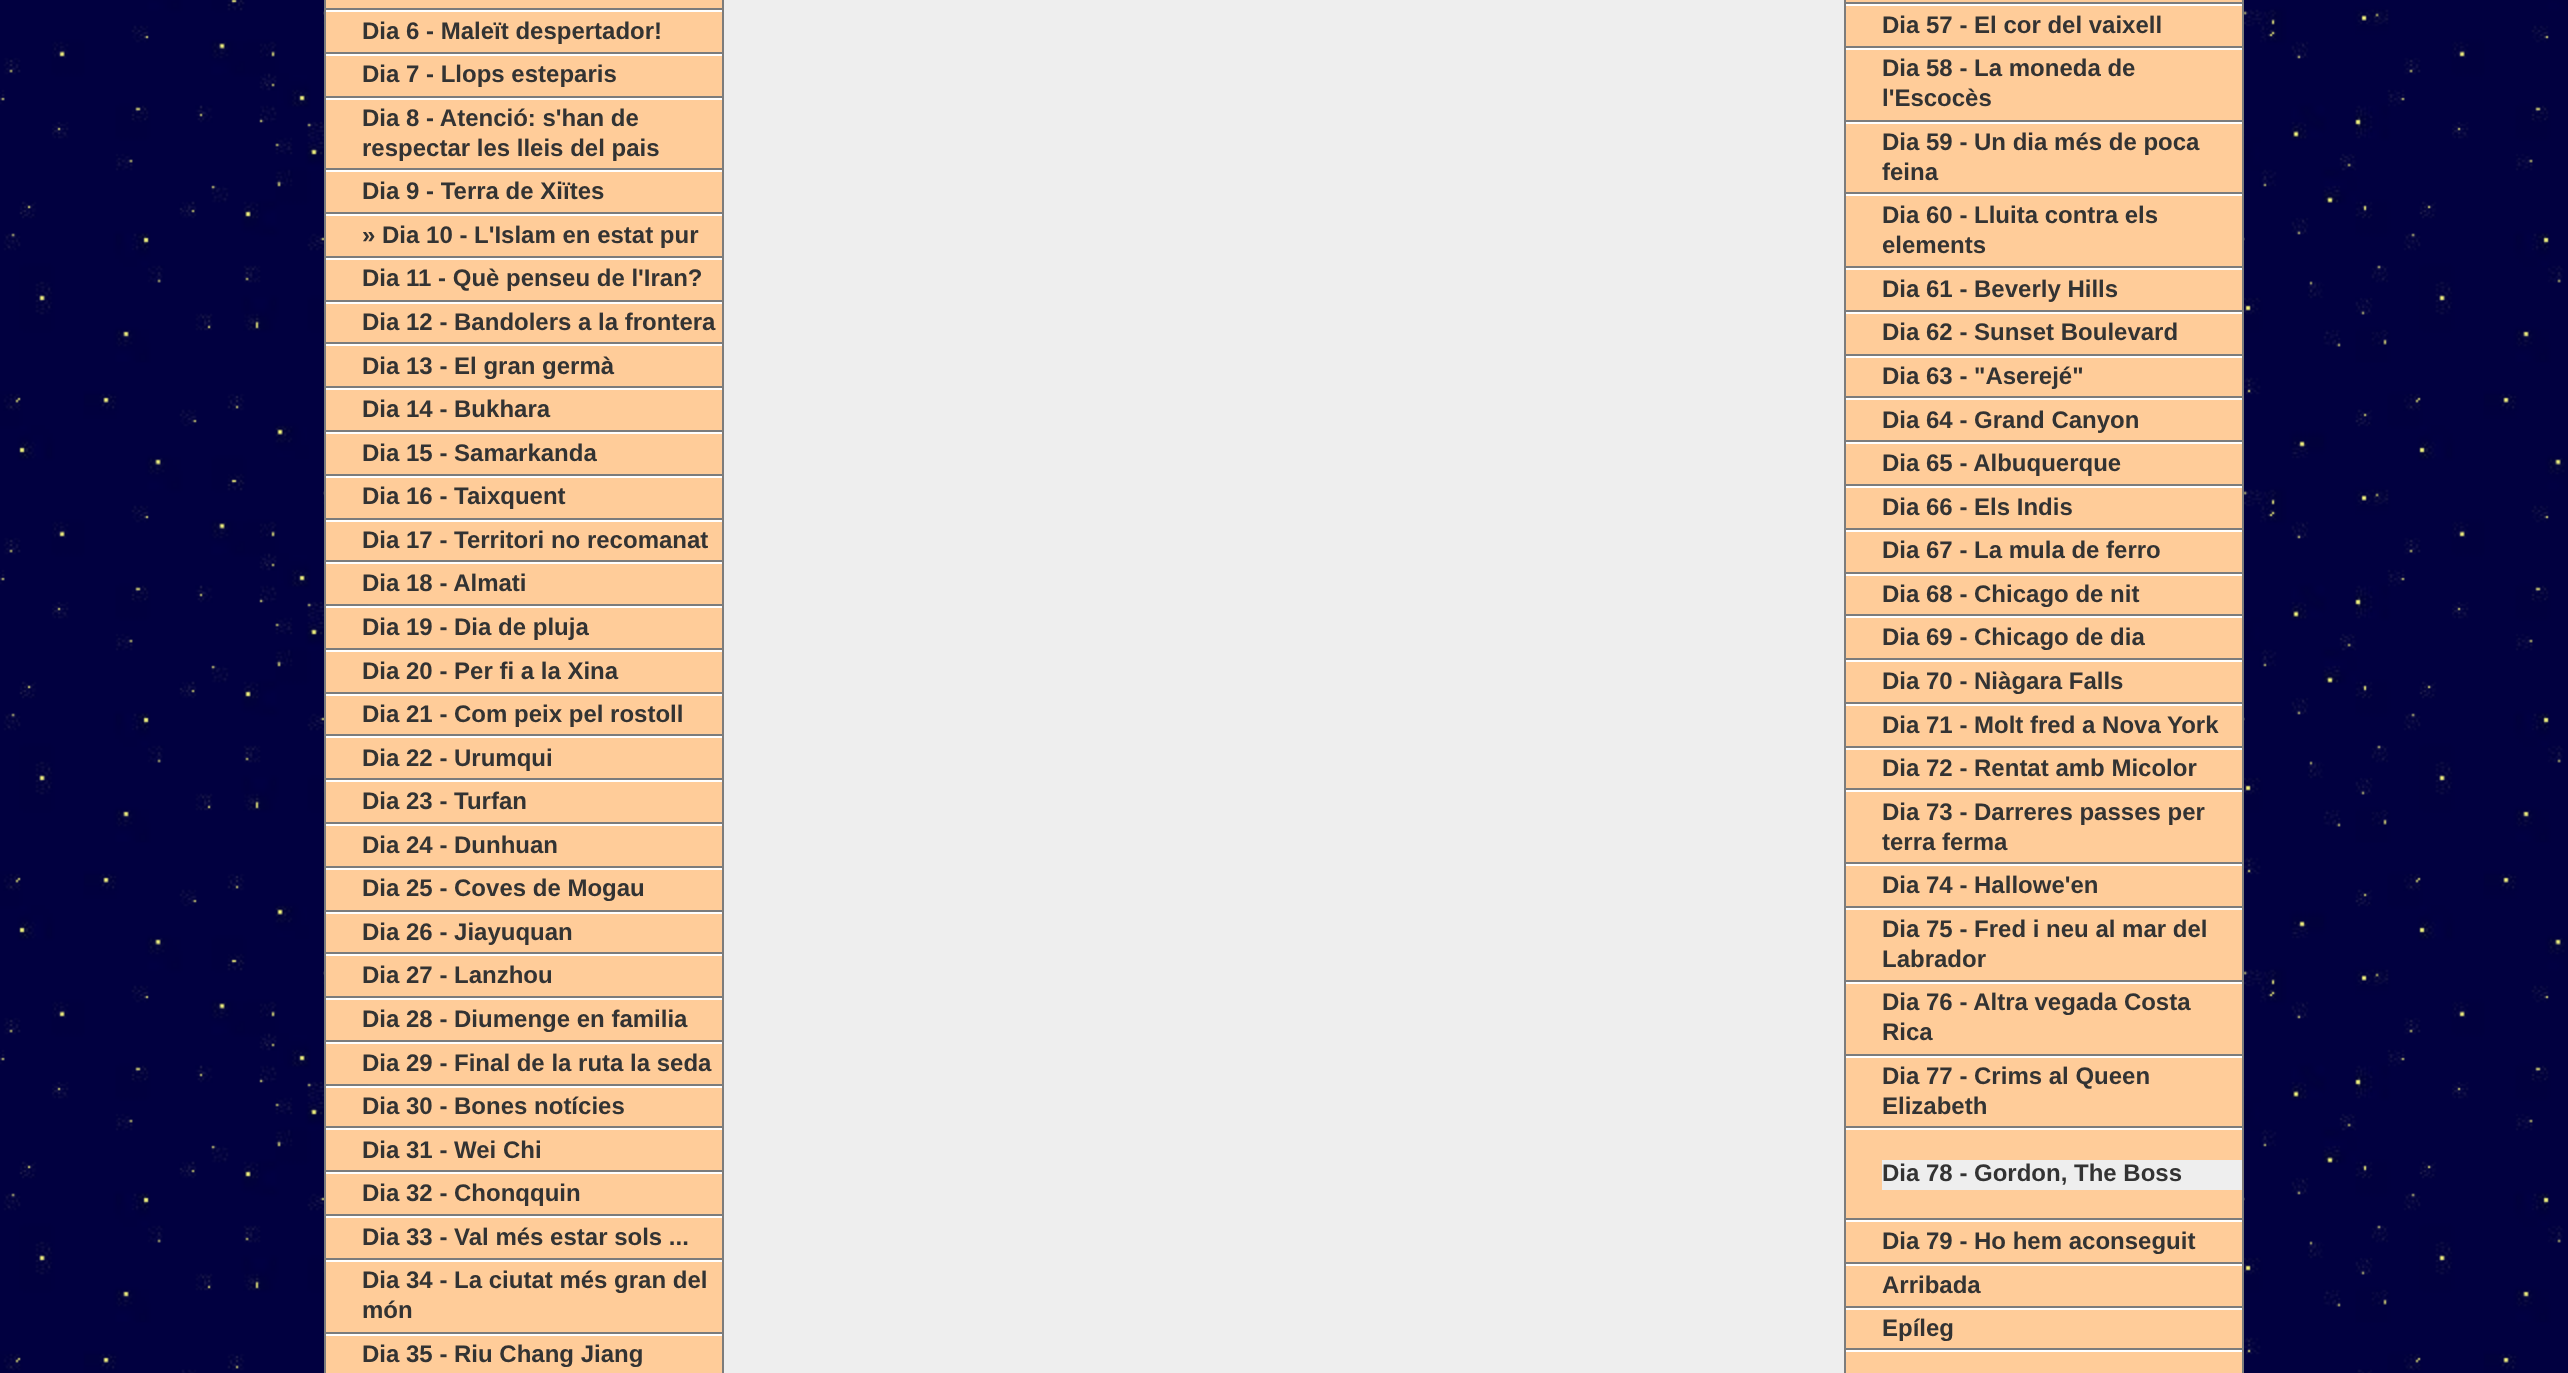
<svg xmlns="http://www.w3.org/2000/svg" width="2568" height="1373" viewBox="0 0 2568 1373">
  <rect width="100%" height="100%" fill="#ffffff"/>
  <image x="0" y="0" width="2568" height="1373" href="img1.png"/>
  <rect x="325" y="-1" width="398" height="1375" fill="none" stroke="#7c7c7c" stroke-width="2"/>
  <rect x="326" y="0" width="396" height="8" fill="#ffcc99"/>
  <rect x="326" y="8" width="396" height="2" fill="#7c7c7c"/>
  <rect x="326" y="12" width="396" height="40" fill="#ffcc99"/>
  <rect x="326" y="10" width="396" height="2" fill="#ffffff"/>
  <rect x="326" y="52" width="396" height="2" fill="#7c7c7c"/>
  <text x="362" y="39" font-family="Liberation Sans" font-size="24" font-weight="bold" fill="#333333">Dia 6 - Maleït despertador!</text>
  <rect x="326" y="56" width="396" height="40" fill="#ffcc99"/>
  <rect x="326" y="54" width="396" height="2" fill="#ffffff"/>
  <rect x="326" y="96" width="396" height="2" fill="#7c7c7c"/>
  <text x="362" y="82" font-family="Liberation Sans" font-size="24" font-weight="bold" fill="#333333">Dia 7 - Llops esteparis</text>
  <rect x="326" y="100" width="396" height="68" fill="#ffcc99"/>
  <rect x="326" y="98" width="396" height="2" fill="#ffffff"/>
  <rect x="326" y="168" width="396" height="2" fill="#7c7c7c"/>
  <text x="362" y="126" font-family="Liberation Sans" font-size="24" font-weight="bold" fill="#333333">Dia 8 - Atenció: s'han de</text>
  <text x="362" y="156" font-family="Liberation Sans" font-size="24" font-weight="bold" fill="#333333">respectar les lleis del pais</text>
  <rect x="326" y="172" width="396" height="40" fill="#ffcc99"/>
  <rect x="326" y="170" width="396" height="2" fill="#ffffff"/>
  <rect x="326" y="212" width="396" height="2" fill="#7c7c7c"/>
  <text x="362" y="199" font-family="Liberation Sans" font-size="24" font-weight="bold" fill="#333333">Dia 9 - Terra de Xiïtes</text>
  <rect x="326" y="216" width="396" height="40" fill="#ffcc99"/>
  <rect x="326" y="214" width="396" height="2" fill="#ffffff"/>
  <rect x="326" y="256" width="396" height="2" fill="#7c7c7c"/>
  <text x="362" y="243" font-family="Liberation Sans" font-size="24" font-weight="bold" fill="#333333">» Dia 10 - L'Islam en estat pur</text>
  <rect x="326" y="260" width="396" height="40" fill="#ffcc99"/>
  <rect x="326" y="258" width="396" height="2" fill="#ffffff"/>
  <rect x="326" y="300" width="396" height="2" fill="#7c7c7c"/>
  <text x="362" y="286" font-family="Liberation Sans" font-size="24" font-weight="bold" fill="#333333">Dia 11 - Què penseu de l'Iran?</text>
  <rect x="326" y="304" width="396" height="38" fill="#ffcc99"/>
  <rect x="326" y="302" width="396" height="2" fill="#ffffff"/>
  <rect x="326" y="342" width="396" height="2" fill="#7c7c7c"/>
  <text x="362" y="330" font-family="Liberation Sans" font-size="24" font-weight="bold" fill="#333333">Dia 12 - Bandolers a la frontera</text>
  <rect x="326" y="346" width="396" height="40" fill="#ffcc99"/>
  <rect x="326" y="344" width="396" height="2" fill="#ffffff"/>
  <rect x="326" y="386" width="396" height="2" fill="#7c7c7c"/>
  <text x="362" y="374" font-family="Liberation Sans" font-size="24" font-weight="bold" fill="#333333">Dia 13 - El gran germà</text>
  <rect x="326" y="390" width="396" height="40" fill="#ffcc99"/>
  <rect x="326" y="388" width="396" height="2" fill="#ffffff"/>
  <rect x="326" y="430" width="396" height="2" fill="#7c7c7c"/>
  <text x="362" y="417" font-family="Liberation Sans" font-size="24" font-weight="bold" fill="#333333">Dia 14 - Bukhara</text>
  <rect x="326" y="434" width="396" height="40" fill="#ffcc99"/>
  <rect x="326" y="432" width="396" height="2" fill="#ffffff"/>
  <rect x="326" y="474" width="396" height="2" fill="#7c7c7c"/>
  <text x="362" y="461" font-family="Liberation Sans" font-size="24" font-weight="bold" fill="#333333">Dia 15 - Samarkanda</text>
  <rect x="326" y="478" width="396" height="40" fill="#ffcc99"/>
  <rect x="326" y="476" width="396" height="2" fill="#ffffff"/>
  <rect x="326" y="518" width="396" height="2" fill="#7c7c7c"/>
  <text x="362" y="504" font-family="Liberation Sans" font-size="24" font-weight="bold" fill="#333333">Dia 16 - Taixquent</text>
  <rect x="326" y="522" width="396" height="38" fill="#ffcc99"/>
  <rect x="326" y="520" width="396" height="2" fill="#ffffff"/>
  <rect x="326" y="560" width="396" height="2" fill="#7c7c7c"/>
  <text x="362" y="548" font-family="Liberation Sans" font-size="24" font-weight="bold" fill="#333333">Dia 17 - Territori no recomanat</text>
  <rect x="326" y="564" width="396" height="40" fill="#ffcc99"/>
  <rect x="326" y="562" width="396" height="2" fill="#ffffff"/>
  <rect x="326" y="604" width="396" height="2" fill="#7c7c7c"/>
  <text x="362" y="591" font-family="Liberation Sans" font-size="24" font-weight="bold" fill="#333333">Dia 18 - Almati</text>
  <rect x="326" y="608" width="396" height="40" fill="#ffcc99"/>
  <rect x="326" y="606" width="396" height="2" fill="#ffffff"/>
  <rect x="326" y="648" width="396" height="2" fill="#7c7c7c"/>
  <text x="362" y="635" font-family="Liberation Sans" font-size="24" font-weight="bold" fill="#333333">Dia 19 - Dia de pluja</text>
  <rect x="326" y="652" width="396" height="40" fill="#ffcc99"/>
  <rect x="326" y="650" width="396" height="2" fill="#ffffff"/>
  <rect x="326" y="692" width="396" height="2" fill="#7c7c7c"/>
  <text x="362" y="679" font-family="Liberation Sans" font-size="24" font-weight="bold" fill="#333333">Dia 20 - Per fi a la Xina</text>
  <rect x="326" y="696" width="396" height="38" fill="#ffcc99"/>
  <rect x="326" y="694" width="396" height="2" fill="#ffffff"/>
  <rect x="326" y="734" width="396" height="2" fill="#7c7c7c"/>
  <text x="362" y="722" font-family="Liberation Sans" font-size="24" font-weight="bold" fill="#333333">Dia 21 - Com peix pel rostoll</text>
  <rect x="326" y="738" width="396" height="40" fill="#ffcc99"/>
  <rect x="326" y="736" width="396" height="2" fill="#ffffff"/>
  <rect x="326" y="778" width="396" height="2" fill="#7c7c7c"/>
  <text x="362" y="766" font-family="Liberation Sans" font-size="24" font-weight="bold" fill="#333333">Dia 22 - Urumqui</text>
  <rect x="326" y="782" width="396" height="40" fill="#ffcc99"/>
  <rect x="326" y="780" width="396" height="2" fill="#ffffff"/>
  <rect x="326" y="822" width="396" height="2" fill="#7c7c7c"/>
  <text x="362" y="809" font-family="Liberation Sans" font-size="24" font-weight="bold" fill="#333333">Dia 23 - Turfan</text>
  <rect x="326" y="826" width="396" height="40" fill="#ffcc99"/>
  <rect x="326" y="824" width="396" height="2" fill="#ffffff"/>
  <rect x="326" y="866" width="396" height="2" fill="#7c7c7c"/>
  <text x="362" y="853" font-family="Liberation Sans" font-size="24" font-weight="bold" fill="#333333">Dia 24 - Dunhuan</text>
  <rect x="326" y="870" width="396" height="40" fill="#ffcc99"/>
  <rect x="326" y="868" width="396" height="2" fill="#ffffff"/>
  <rect x="326" y="910" width="396" height="2" fill="#7c7c7c"/>
  <text x="362" y="896" font-family="Liberation Sans" font-size="24" font-weight="bold" fill="#333333">Dia 25 - Coves de Mogau</text>
  <rect x="326" y="914" width="396" height="38" fill="#ffcc99"/>
  <rect x="326" y="912" width="396" height="2" fill="#ffffff"/>
  <rect x="326" y="952" width="396" height="2" fill="#7c7c7c"/>
  <text x="362" y="940" font-family="Liberation Sans" font-size="24" font-weight="bold" fill="#333333">Dia 26 - Jiayuquan</text>
  <rect x="326" y="956" width="396" height="40" fill="#ffcc99"/>
  <rect x="326" y="954" width="396" height="2" fill="#ffffff"/>
  <rect x="326" y="996" width="396" height="2" fill="#7c7c7c"/>
  <text x="362" y="983" font-family="Liberation Sans" font-size="24" font-weight="bold" fill="#333333">Dia 27 - Lanzhou</text>
  <rect x="326" y="1000" width="396" height="40" fill="#ffcc99"/>
  <rect x="326" y="998" width="396" height="2" fill="#ffffff"/>
  <rect x="326" y="1040" width="396" height="2" fill="#7c7c7c"/>
  <text x="362" y="1027" font-family="Liberation Sans" font-size="24" font-weight="bold" fill="#333333">Dia 28 - Diumenge en familia</text>
  <rect x="326" y="1044" width="396" height="40" fill="#ffcc99"/>
  <rect x="326" y="1042" width="396" height="2" fill="#ffffff"/>
  <rect x="326" y="1084" width="396" height="2" fill="#7c7c7c"/>
  <text x="362" y="1071" font-family="Liberation Sans" font-size="24" font-weight="bold" fill="#333333">Dia 29 - Final de la ruta la seda</text>
  <rect x="326" y="1088" width="396" height="38" fill="#ffcc99"/>
  <rect x="326" y="1086" width="396" height="2" fill="#ffffff"/>
  <rect x="326" y="1126" width="396" height="2" fill="#7c7c7c"/>
  <text x="362" y="1114" font-family="Liberation Sans" font-size="24" font-weight="bold" fill="#333333">Dia 30 - Bones notícies</text>
  <rect x="326" y="1130" width="396" height="40" fill="#ffcc99"/>
  <rect x="326" y="1128" width="396" height="2" fill="#ffffff"/>
  <rect x="326" y="1170" width="396" height="2" fill="#7c7c7c"/>
  <text x="362" y="1158" font-family="Liberation Sans" font-size="24" font-weight="bold" fill="#333333">Dia 31 - Wei Chi</text>
  <rect x="326" y="1174" width="396" height="40" fill="#ffcc99"/>
  <rect x="326" y="1172" width="396" height="2" fill="#ffffff"/>
  <rect x="326" y="1214" width="396" height="2" fill="#7c7c7c"/>
  <text x="362" y="1201" font-family="Liberation Sans" font-size="24" font-weight="bold" fill="#333333">Dia 32 - Chonqquin</text>
  <rect x="326" y="1218" width="396" height="40" fill="#ffcc99"/>
  <rect x="326" y="1216" width="396" height="2" fill="#ffffff"/>
  <rect x="326" y="1258" width="396" height="2" fill="#7c7c7c"/>
  <text x="362" y="1245" font-family="Liberation Sans" font-size="24" font-weight="bold" fill="#333333">Dia 33 - Val més estar sols ...</text>
  <rect x="326" y="1262" width="396" height="70" fill="#ffcc99"/>
  <rect x="326" y="1260" width="396" height="2" fill="#ffffff"/>
  <rect x="326" y="1332" width="396" height="2" fill="#7c7c7c"/>
  <text x="362" y="1288" font-family="Liberation Sans" font-size="24" font-weight="bold" fill="#333333">Dia 34 - La ciutat més gran del</text>
  <text x="362" y="1318" font-family="Liberation Sans" font-size="24" font-weight="bold" fill="#333333">món</text>
  <rect x="326" y="1336" width="396" height="37" fill="#ffcc99"/>
  <rect x="326" y="1334" width="396" height="2" fill="#ffffff"/>
  <text x="362" y="1362" font-family="Liberation Sans" font-size="24" font-weight="bold" fill="#333333">Dia 35 - Riu Chang Jiang</text>
  <rect x="724" y="0" width="1120" height="1373" fill="#eeeeee"/>
  <rect x="1845" y="-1" width="398" height="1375" fill="none" stroke="#7c7c7c" stroke-width="2"/>
  <rect x="1846" y="0" width="396" height="2" fill="#ffcc99"/>
  <rect x="1846" y="2" width="396" height="2" fill="#7c7c7c"/>
  <rect x="1846" y="6" width="396" height="40" fill="#ffcc99"/>
  <rect x="1846" y="4" width="396" height="2" fill="#ffffff"/>
  <rect x="1846" y="46" width="396" height="2" fill="#7c7c7c"/>
  <text x="1882" y="33" font-family="Liberation Sans" font-size="24" font-weight="bold" fill="#333333">Dia 57 - El cor del vaixell</text>
  <rect x="1846" y="50" width="396" height="70" fill="#ffcc99"/>
  <rect x="1846" y="48" width="396" height="2" fill="#ffffff"/>
  <rect x="1846" y="120" width="396" height="2" fill="#7c7c7c"/>
  <text x="1882" y="76" font-family="Liberation Sans" font-size="24" font-weight="bold" fill="#333333">Dia 58 - La moneda de</text>
  <text x="1882" y="106" font-family="Liberation Sans" font-size="24" font-weight="bold" fill="#333333">l'Escocès</text>
  <rect x="1846" y="124" width="396" height="68" fill="#ffcc99"/>
  <rect x="1846" y="122" width="396" height="2" fill="#ffffff"/>
  <rect x="1846" y="192" width="396" height="2" fill="#7c7c7c"/>
  <text x="1882" y="150" font-family="Liberation Sans" font-size="24" font-weight="bold" fill="#333333">Dia 59 - Un dia més de poca</text>
  <text x="1882" y="180" font-family="Liberation Sans" font-size="24" font-weight="bold" fill="#333333">feina</text>
  <rect x="1846" y="196" width="396" height="70" fill="#ffcc99"/>
  <rect x="1846" y="194" width="396" height="2" fill="#ffffff"/>
  <rect x="1846" y="266" width="396" height="2" fill="#7c7c7c"/>
  <text x="1882" y="223" font-family="Liberation Sans" font-size="24" font-weight="bold" fill="#333333">Dia 60 - Lluita contra els</text>
  <text x="1882" y="253" font-family="Liberation Sans" font-size="24" font-weight="bold" fill="#333333">elements</text>
  <rect x="1846" y="270" width="396" height="40" fill="#ffcc99"/>
  <rect x="1846" y="268" width="396" height="2" fill="#ffffff"/>
  <rect x="1846" y="310" width="396" height="2" fill="#7c7c7c"/>
  <text x="1882" y="297" font-family="Liberation Sans" font-size="24" font-weight="bold" fill="#333333">Dia 61 - Beverly Hills</text>
  <rect x="1846" y="314" width="396" height="40" fill="#ffcc99"/>
  <rect x="1846" y="312" width="396" height="2" fill="#ffffff"/>
  <rect x="1846" y="354" width="396" height="2" fill="#7c7c7c"/>
  <text x="1882" y="340" font-family="Liberation Sans" font-size="24" font-weight="bold" fill="#333333">Dia 62 - Sunset Boulevard</text>
  <rect x="1846" y="358" width="396" height="38" fill="#ffcc99"/>
  <rect x="1846" y="356" width="396" height="2" fill="#ffffff"/>
  <rect x="1846" y="396" width="396" height="2" fill="#7c7c7c"/>
  <text x="1882" y="384" font-family="Liberation Sans" font-size="24" font-weight="bold" fill="#333333">Dia 63 - "Aserejé"</text>
  <rect x="1846" y="400" width="396" height="40" fill="#ffcc99"/>
  <rect x="1846" y="398" width="396" height="2" fill="#ffffff"/>
  <rect x="1846" y="440" width="396" height="2" fill="#7c7c7c"/>
  <text x="1882" y="428" font-family="Liberation Sans" font-size="24" font-weight="bold" fill="#333333">Dia 64 - Grand Canyon</text>
  <rect x="1846" y="444" width="396" height="40" fill="#ffcc99"/>
  <rect x="1846" y="442" width="396" height="2" fill="#ffffff"/>
  <rect x="1846" y="484" width="396" height="2" fill="#7c7c7c"/>
  <text x="1882" y="471" font-family="Liberation Sans" font-size="24" font-weight="bold" fill="#333333">Dia 65 - Albuquerque</text>
  <rect x="1846" y="488" width="396" height="40" fill="#ffcc99"/>
  <rect x="1846" y="486" width="396" height="2" fill="#ffffff"/>
  <rect x="1846" y="528" width="396" height="2" fill="#7c7c7c"/>
  <text x="1882" y="515" font-family="Liberation Sans" font-size="24" font-weight="bold" fill="#333333">Dia 66 - Els Indis</text>
  <rect x="1846" y="532" width="396" height="40" fill="#ffcc99"/>
  <rect x="1846" y="530" width="396" height="2" fill="#ffffff"/>
  <rect x="1846" y="572" width="396" height="2" fill="#7c7c7c"/>
  <text x="1882" y="558" font-family="Liberation Sans" font-size="24" font-weight="bold" fill="#333333">Dia 67 - La mula de ferro</text>
  <rect x="1846" y="576" width="396" height="38" fill="#ffcc99"/>
  <rect x="1846" y="574" width="396" height="2" fill="#ffffff"/>
  <rect x="1846" y="614" width="396" height="2" fill="#7c7c7c"/>
  <text x="1882" y="602" font-family="Liberation Sans" font-size="24" font-weight="bold" fill="#333333">Dia 68 - Chicago de nit</text>
  <rect x="1846" y="618" width="396" height="40" fill="#ffcc99"/>
  <rect x="1846" y="616" width="396" height="2" fill="#ffffff"/>
  <rect x="1846" y="658" width="396" height="2" fill="#7c7c7c"/>
  <text x="1882" y="645" font-family="Liberation Sans" font-size="24" font-weight="bold" fill="#333333">Dia 69 - Chicago de dia</text>
  <rect x="1846" y="662" width="396" height="40" fill="#ffcc99"/>
  <rect x="1846" y="660" width="396" height="2" fill="#ffffff"/>
  <rect x="1846" y="702" width="396" height="2" fill="#7c7c7c"/>
  <text x="1882" y="689" font-family="Liberation Sans" font-size="24" font-weight="bold" fill="#333333">Dia 70 - Niàgara Falls</text>
  <rect x="1846" y="706" width="396" height="40" fill="#ffcc99"/>
  <rect x="1846" y="704" width="396" height="2" fill="#ffffff"/>
  <rect x="1846" y="746" width="396" height="2" fill="#7c7c7c"/>
  <text x="1882" y="733" font-family="Liberation Sans" font-size="24" font-weight="bold" fill="#333333">Dia 71 - Molt fred a Nova York</text>
  <rect x="1846" y="750" width="396" height="38" fill="#ffcc99"/>
  <rect x="1846" y="748" width="396" height="2" fill="#ffffff"/>
  <rect x="1846" y="788" width="396" height="2" fill="#7c7c7c"/>
  <text x="1882" y="776" font-family="Liberation Sans" font-size="24" font-weight="bold" fill="#333333">Dia 72 - Rentat amb Micolor</text>
  <rect x="1846" y="792" width="396" height="70" fill="#ffcc99"/>
  <rect x="1846" y="790" width="396" height="2" fill="#ffffff"/>
  <rect x="1846" y="862" width="396" height="2" fill="#7c7c7c"/>
  <text x="1882" y="820" font-family="Liberation Sans" font-size="24" font-weight="bold" fill="#333333">Dia 73 - Darreres passes per</text>
  <text x="1882" y="850" font-family="Liberation Sans" font-size="24" font-weight="bold" fill="#333333">terra ferma</text>
  <rect x="1846" y="866" width="396" height="40" fill="#ffcc99"/>
  <rect x="1846" y="864" width="396" height="2" fill="#ffffff"/>
  <rect x="1846" y="906" width="396" height="2" fill="#7c7c7c"/>
  <text x="1882" y="893" font-family="Liberation Sans" font-size="24" font-weight="bold" fill="#333333">Dia 74 - Hallowe'en</text>
  <rect x="1846" y="910" width="396" height="70" fill="#ffcc99"/>
  <rect x="1846" y="908" width="396" height="2" fill="#ffffff"/>
  <rect x="1846" y="980" width="396" height="2" fill="#7c7c7c"/>
  <text x="1882" y="937" font-family="Liberation Sans" font-size="24" font-weight="bold" fill="#333333">Dia 75 - Fred i neu al mar del</text>
  <text x="1882" y="967" font-family="Liberation Sans" font-size="24" font-weight="bold" fill="#333333">Labrador</text>
  <rect x="1846" y="984" width="396" height="70" fill="#ffcc99"/>
  <rect x="1846" y="982" width="396" height="2" fill="#ffffff"/>
  <rect x="1846" y="1054" width="396" height="2" fill="#7c7c7c"/>
  <text x="1882" y="1010" font-family="Liberation Sans" font-size="24" font-weight="bold" fill="#333333">Dia 76 - Altra vegada Costa</text>
  <text x="1882" y="1040" font-family="Liberation Sans" font-size="24" font-weight="bold" fill="#333333">Rica</text>
  <rect x="1846" y="1058" width="396" height="68" fill="#ffcc99"/>
  <rect x="1846" y="1056" width="396" height="2" fill="#ffffff"/>
  <rect x="1846" y="1126" width="396" height="2" fill="#7c7c7c"/>
  <text x="1882" y="1084" font-family="Liberation Sans" font-size="24" font-weight="bold" fill="#333333">Dia 77 - Crims al Queen</text>
  <text x="1882" y="1114" font-family="Liberation Sans" font-size="24" font-weight="bold" fill="#333333">Elizabeth</text>
  <rect x="1846" y="1130" width="396" height="88" fill="#ffcc99"/>
  <rect x="1846" y="1128" width="396" height="2" fill="#ffffff"/>
  <rect x="1846" y="1218" width="396" height="2" fill="#7c7c7c"/>
  <rect x="1882" y="1160" width="360" height="30" fill="#eeeeee"/>
  <text x="1882" y="1181" font-family="Liberation Sans" font-size="24" font-weight="bold" fill="#333333">Dia 78 - Gordon, The Boss</text>
  <rect x="1846" y="1222" width="396" height="40" fill="#ffcc99"/>
  <rect x="1846" y="1220" width="396" height="2" fill="#ffffff"/>
  <rect x="1846" y="1262" width="396" height="2" fill="#7c7c7c"/>
  <text x="1882" y="1249" font-family="Liberation Sans" font-size="24" font-weight="bold" fill="#333333">Dia 79 - Ho hem aconseguit</text>
  <rect x="1846" y="1266" width="396" height="40" fill="#ffcc99"/>
  <rect x="1846" y="1264" width="396" height="2" fill="#ffffff"/>
  <rect x="1846" y="1306" width="396" height="2" fill="#7c7c7c"/>
  <text x="1882" y="1293" font-family="Liberation Sans" font-size="24" font-weight="bold" fill="#333333">Arribada</text>
  <rect x="1846" y="1310" width="396" height="38" fill="#ffcc99"/>
  <rect x="1846" y="1308" width="396" height="2" fill="#ffffff"/>
  <rect x="1846" y="1348" width="396" height="2" fill="#7c7c7c"/>
  <text x="1882" y="1336" font-family="Liberation Sans" font-size="24" font-weight="bold" fill="#333333">Epíleg</text>
  <rect x="1846" y="1352" width="396" height="21" fill="#ffcc99"/>
  <rect x="1846" y="1350" width="396" height="2" fill="#ffffff"/>
</svg>
